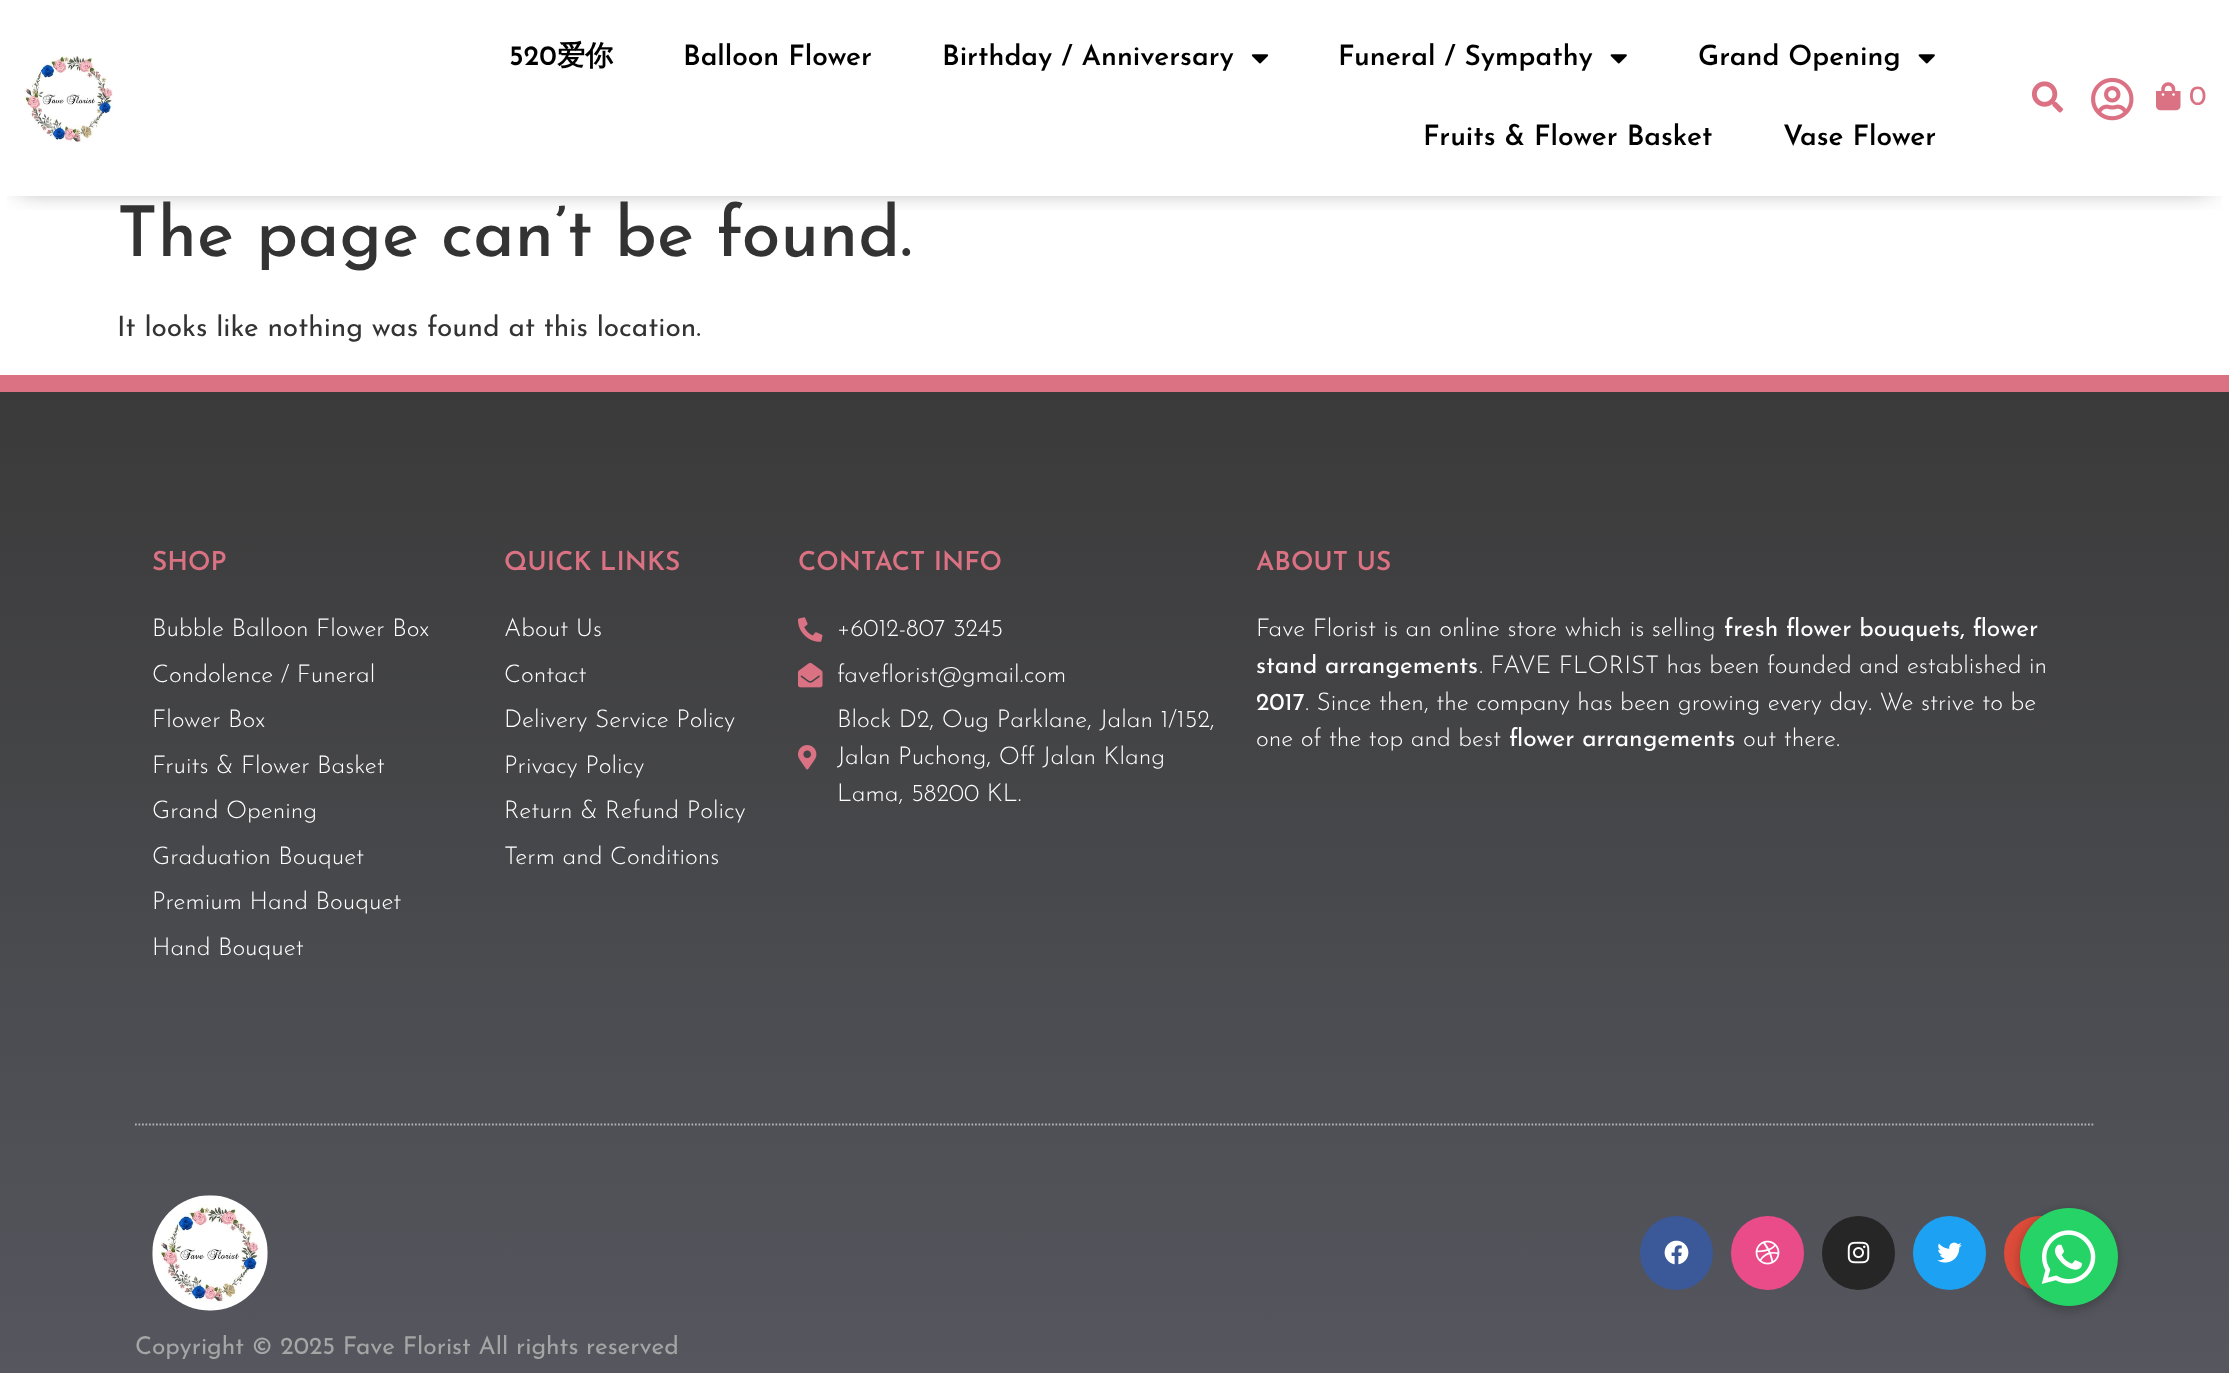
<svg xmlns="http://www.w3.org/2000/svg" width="2229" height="1373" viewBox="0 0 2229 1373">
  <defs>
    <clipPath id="clip1"><rect x="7" y="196" width="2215" height="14"/></clipPath>
    <filter id="blur1" x="-50%" y="-200%" width="200%" height="500%"><feGaussianBlur stdDeviation="13"/></filter>
    <linearGradient id="g1" gradientUnits="userSpaceOnUse" x1="1115" y1="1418" x2="1115" y2="392"><stop offset="0" stop-color="#575860"/><stop offset="1" stop-color="#3a3a3a"/></linearGradient>
    <filter id="blur2" x="-50%" y="-200%" width="200%" height="500%"><feGaussianBlur stdDeviation="5"/></filter>
  </defs>
  <rect width="100%" height="100%" fill="#ffffff"/>
  <g clip-path="url(#clip1)">
    <rect x="19" y="30" width="2191" height="157" fill="#000000" fill-opacity="0.5" filter="url(#blur1)"/>
  </g>
  <image x="24" y="55" width="89" height="88" href="img1.png"/>
  <text x="509" y="65" font-family="Josefin Sans" font-size="28" font-weight="600" fill="#000000">520</text>
  <text x="557" y="65" font-family="WenQuanYi Zen Hei" font-size="28" font-weight="bold" fill="#000000">爱你</text>
  <text x="683" y="65" font-family="Josefin Sans" font-size="28" font-weight="600" fill="#000000">Balloon Flower</text>
  <text x="942" y="65" font-family="Josefin Sans" font-size="28" font-weight="600" fill="#000000">Birthday / Anniversary</text>
  <image x="1251" y="54" width="18" height="10" href="img2.png"/>
  <text x="1338" y="65" font-family="Josefin Sans" font-size="28" font-weight="600" fill="#000000">Funeral / Sympathy</text>
  <image x="1610" y="54" width="17" height="10" href="img3.png"/>
  <text x="1698" y="65" font-family="Josefin Sans" font-size="28" font-weight="600" fill="#000000">Grand Opening</text>
  <image x="1918" y="54" width="17" height="10" href="img3.png"/>
  <text x="1423" y="145" font-family="Josefin Sans" font-size="28" font-weight="600" fill="#000000">Fruits &amp; Flower Basket</text>
  <text x="1783" y="145" font-family="Josefin Sans" font-size="28" font-weight="600" fill="#000000">Vase Flower</text>
  <image x="2031" y="81" width="33" height="32" href="img4.png"/>
  <image x="2091" y="77" width="43" height="44" href="img5.png"/>
  <image x="2156" y="82" width="25" height="29" href="img6.png"/>
  <text x="2189" y="105" font-family="Josefin Sans" font-size="28" fill="#db7283">0</text>
  <text x="117" y="256" font-family="Josefin Sans" font-size="70" font-weight="500" fill="#333333">The page can’t be found.</text>
  <text x="117" y="336" font-family="Josefin Sans" font-size="28" fill="#333333">It looks like nothing was found at this location.</text>
  <rect x="0" y="392" width="2229" height="981" fill="url(#g1)"/>
  <rect x="0" y="375" width="2229" height="17" fill="#db7283"/>
  <text x="152" y="570" font-family="Josefin Sans" font-size="26.25" font-weight="600" fill="#db7283">SHOP</text>
  <text x="152" y="636" font-family="Josefin Sans" font-size="24.5" font-weight="300" fill="#ffffff">Bubble Balloon Flower Box</text>
  <text x="152" y="682" font-family="Josefin Sans" font-size="24.5" font-weight="300" fill="#ffffff">Condolence / Funeral</text>
  <text x="152" y="727" font-family="Josefin Sans" font-size="24.5" font-weight="300" fill="#ffffff">Flower Box</text>
  <text x="152" y="773" font-family="Josefin Sans" font-size="24.5" font-weight="300" fill="#ffffff">Fruits &amp; Flower Basket</text>
  <text x="152" y="818" font-family="Josefin Sans" font-size="24.5" font-weight="300" fill="#ffffff">Grand Opening</text>
  <text x="152" y="864" font-family="Josefin Sans" font-size="24.5" font-weight="300" fill="#ffffff">Graduation Bouquet</text>
  <text x="152" y="909" font-family="Josefin Sans" font-size="24.5" font-weight="300" fill="#ffffff">Premium Hand Bouquet</text>
  <text x="152" y="955" font-family="Josefin Sans" font-size="24.5" font-weight="300" fill="#ffffff">Hand Bouquet</text>
  <text x="504" y="570" font-family="Josefin Sans" font-size="26.25" font-weight="600" fill="#db7283">QUICK LINKS</text>
  <text x="504" y="636" font-family="Josefin Sans" font-size="24.5" font-weight="300" fill="#ffffff">About Us</text>
  <text x="504" y="682" font-family="Josefin Sans" font-size="24.5" font-weight="300" fill="#ffffff">Contact</text>
  <text x="504" y="727" font-family="Josefin Sans" font-size="24.5" font-weight="300" fill="#ffffff">Delivery Service Policy</text>
  <text x="504" y="773" font-family="Josefin Sans" font-size="24.5" font-weight="300" fill="#ffffff">Privacy Policy</text>
  <text x="504" y="818" font-family="Josefin Sans" font-size="24.5" font-weight="300" fill="#ffffff">Return &amp; Refund Policy</text>
  <text x="504" y="864" font-family="Josefin Sans" font-size="24.5" font-weight="300" fill="#ffffff">Term and Conditions</text>
  <text x="798" y="570" font-family="Josefin Sans" font-size="26.25" font-weight="600" fill="#db7283">CONTACT INFO</text>
  <image x="798" y="617" width="25" height="25" href="img7.png"/>
  <text x="837" y="636" font-family="Josefin Sans" font-size="24.5" font-weight="300" fill="#ffffff">+6012-807 3245</text>
  <image x="798" y="662" width="25" height="26" href="img8.png"/>
  <text x="837" y="682" font-family="Josefin Sans" font-size="24.5" font-weight="300" fill="#ffffff">faveflorist@gmail.com</text>
  <image x="798" y="745" width="19" height="25" href="img9.png"/>
  <text x="837" y="727" font-family="Josefin Sans" font-size="24.5" font-weight="300" fill="#ffffff">Block D2, Oug Parklane, Jalan 1/152,</text>
  <text x="837" y="764" font-family="Josefin Sans" font-size="24.5" font-weight="300" fill="#ffffff">Jalan Puchong, Off Jalan Klang</text>
  <text x="837" y="801" font-family="Josefin Sans" font-size="24.5" font-weight="300" fill="#ffffff">Lama, 58200 KL.</text>
  <text x="1256" y="570" font-family="Josefin Sans" font-size="26.25" font-weight="600" fill="#db7283">ABOUT US</text>
  <text x="1256" y="636" font-family="Josefin Sans" font-size="24.5" font-weight="300" fill="#ffffff">Fave Florist is an online store which is selling</text>
  <text x="1724" y="636" font-family="Josefin Sans" font-size="24.5" fill="#ffffff">fresh flower bouquets, flower</text>
  <text x="1256" y="673" font-family="Josefin Sans" font-size="24.5" fill="#ffffff">stand arrangements</text>
  <text x="1479" y="673" font-family="Josefin Sans" font-size="24.5" font-weight="300" fill="#ffffff">. FAVE FLORIST has been founded and established in</text>
  <text x="1256" y="710" font-family="Josefin Sans" font-size="24.5" fill="#ffffff">2017</text>
  <text x="1305" y="710" font-family="Josefin Sans" font-size="24.5" font-weight="300" fill="#ffffff">. Since then, the company has been growing every day. We strive to be</text>
  <text x="1256" y="746" font-family="Josefin Sans" font-size="24.5" font-weight="300" fill="#ffffff">one of the top and best</text>
  <text x="1509" y="746" font-family="Josefin Sans" font-size="24.5" fill="#ffffff">flower arrangements</text>
  <text x="1743" y="746" font-family="Josefin Sans" font-size="24.5" font-weight="300" fill="#ffffff">out there.</text>
  <path d="M135 1124.5H2095" fill="none" stroke="#b2b2b4" stroke-width="1.8" stroke-dasharray="1.75 1.75"/>
  <image x="152" y="1195" width="116" height="116" href="img10.png"/>
  <rect x="1640" y="1216" width="73" height="74" rx="36.5" fill="#3b5998"/>
  <image x="1664" y="1240" width="25" height="25" href="img11.png"/>
  <rect x="1731" y="1216" width="73" height="74" rx="36.5" fill="#ea4c89"/>
  <image x="1755" y="1240" width="25" height="25" href="img12.png"/>
  <rect x="1822" y="1216" width="73" height="74" rx="36.5" fill="#262626"/>
  <image x="1847" y="1241" width="23" height="23" href="img13.png"/>
  <rect x="1913" y="1216" width="73" height="74" rx="36.5" fill="#1da1f2"/>
  <image x="1937" y="1242" width="25" height="21" href="img14.png"/>
  <rect x="2004" y="1216" width="73" height="74" rx="36.5" fill="#dd4b39"/>
  <text x="135" y="1354" font-family="Josefin Sans" font-size="24.5" fill="#a5a5a5">Copyright © 2025 Fave Florist All rights reserved</text>
  <rect x="2018" y="1209" width="101" height="102" rx="50.5" fill="#000000" fill-opacity="0.2" filter="url(#blur2)"/>
  <circle cx="2069" cy="1257" r="49" fill="#25d366"/>
  <image x="2041" y="1230" width="55" height="54" href="img15.png"/>
</svg>
